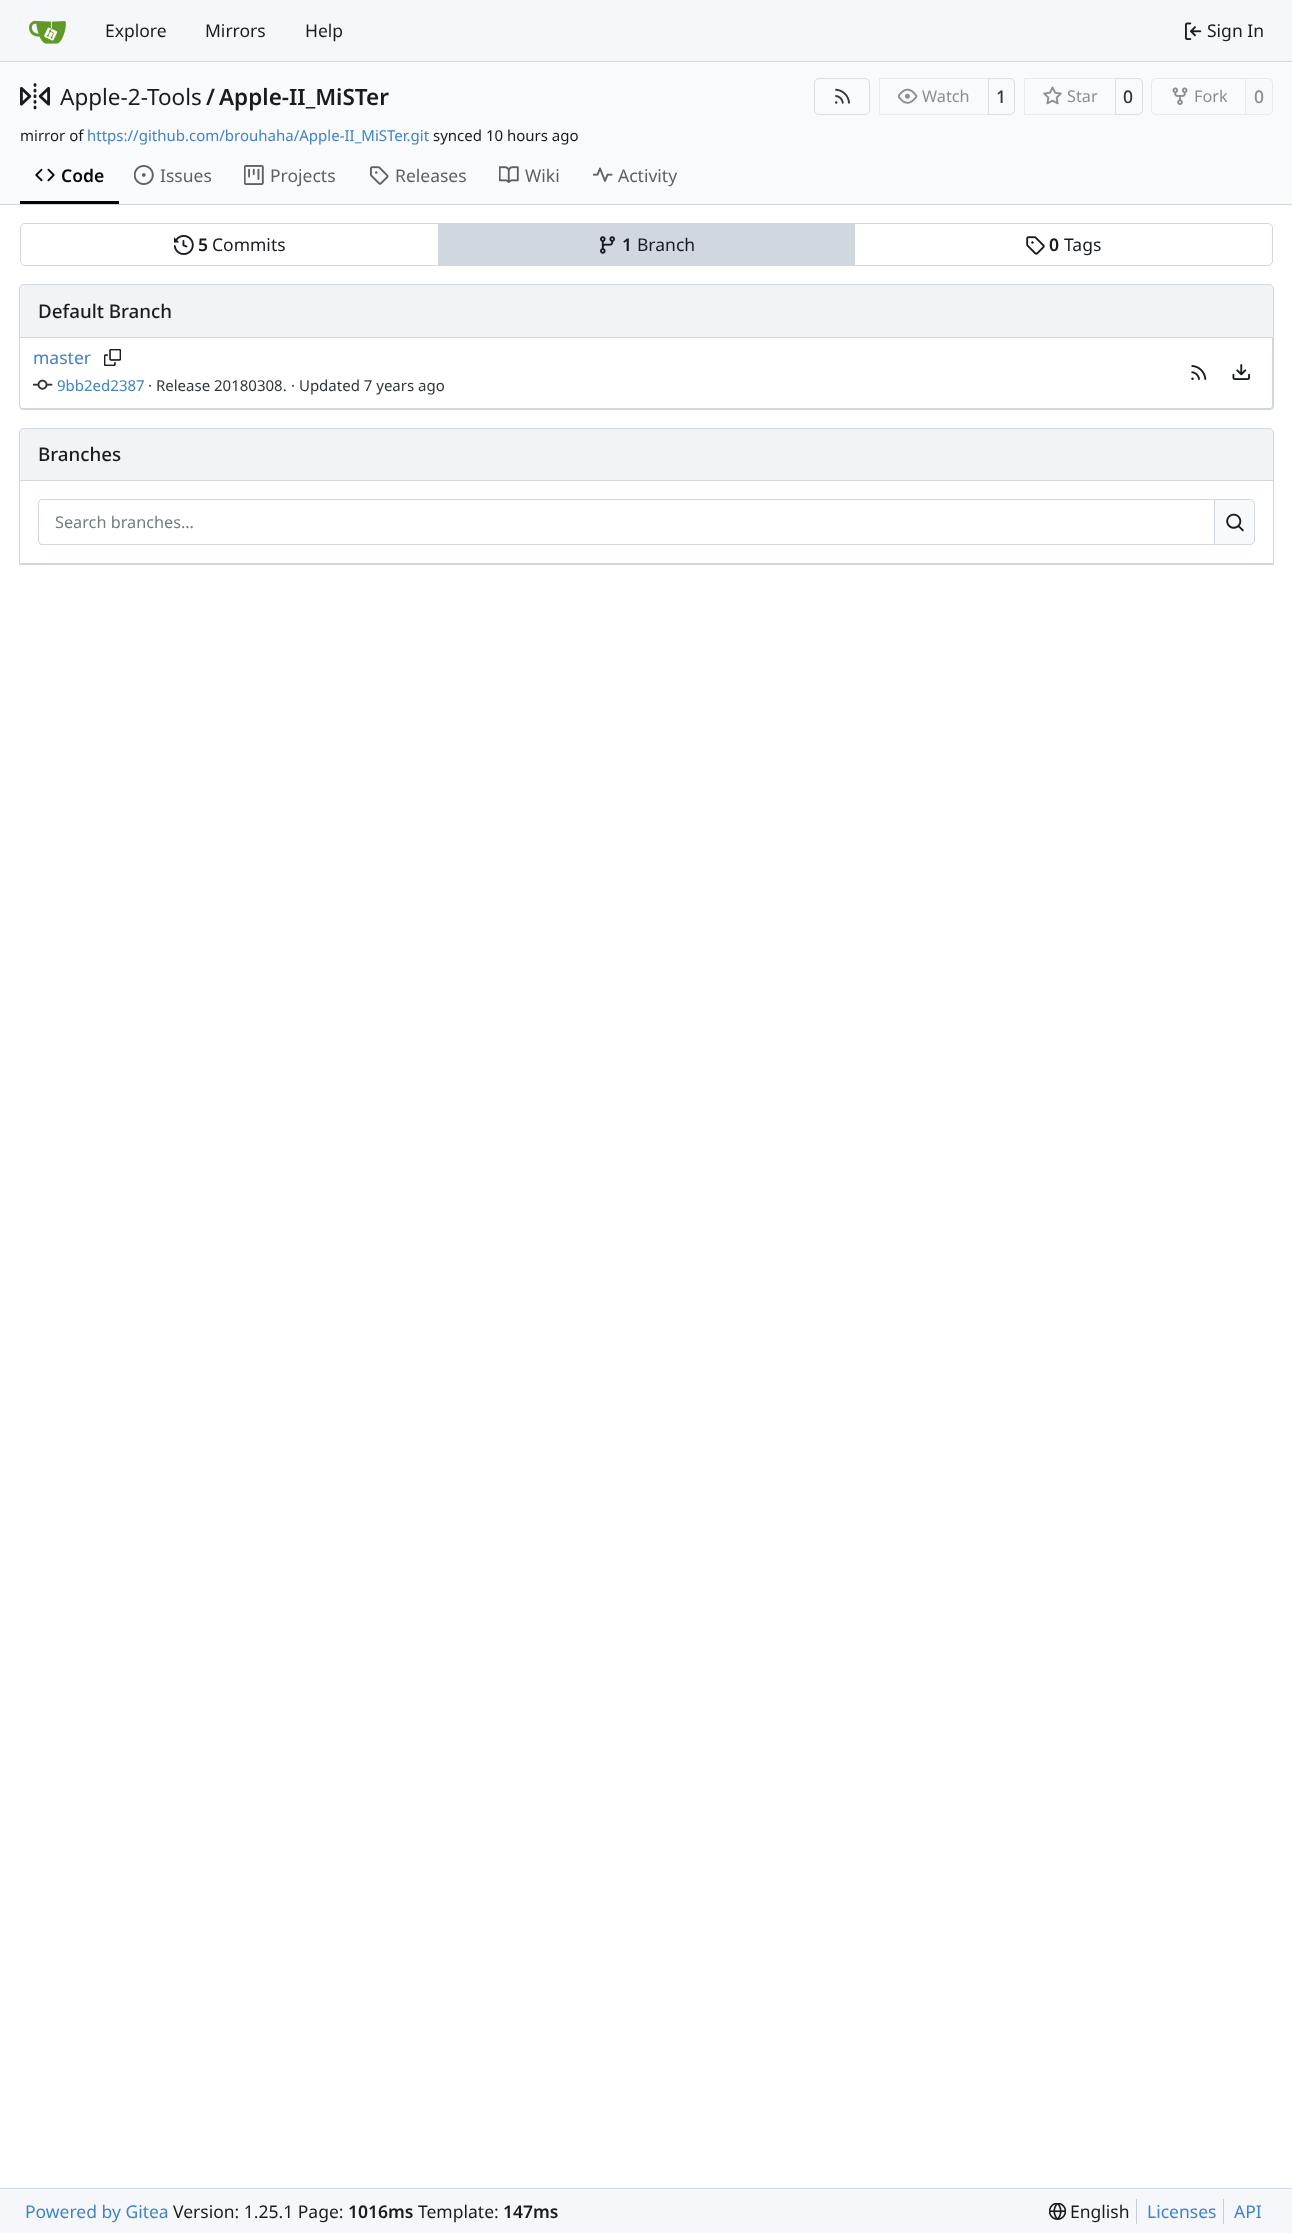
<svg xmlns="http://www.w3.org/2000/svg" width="1292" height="2233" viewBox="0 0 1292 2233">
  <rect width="100%" height="100%" fill="#ffffff"/>
  <rect x="0" y="0" width="1292" height="61" fill="#f6f7fa"/>
  <rect x="0" y="61" width="1292" height="1" fill="#d0d7de"/>
  <image x="29" y="20" width="37" height="24" href="img1.png"/>
  <text x="105" y="37" font-family="Noto Sans" font-size="17.5" fill="#181c21">Explore</text>
  <text x="205" y="37" font-family="Noto Sans" font-size="17.5" fill="#181c21">Mirrors</text>
  <text x="305" y="37" font-family="Noto Sans" font-size="17.5" fill="#181c21">Help</text>
  <image x="1185" y="22" width="17" height="18" href="img2.png"/>
  <text x="1207" y="37" font-family="Noto Sans" font-size="17.5" fill="#181c21">Sign In</text>
  <rect x="0" y="63" width="1292" height="141" fill="#f9fafb"/>
  <image x="20" y="83" width="30" height="27" href="img3.png"/>
  <text x="60" y="105" font-family="Noto Sans" font-size="22.5" fill="#181c21">Apple-2-Tools</text>
  <text x="206" y="105" font-family="Noto Sans" font-size="22.5" font-weight="600" fill="#181c21">/</text>
  <text x="219" y="105" font-family="Noto Sans" font-size="22.5" font-weight="600" fill="#181c21">Apple-II_MiSTer</text>
  <rect x="814.5" y="78.5" width="55" height="36" rx="4.5" fill="none" stroke="#dddee1"/>
  <image x="835" y="88" width="15" height="16" href="img4.png"/>
  <path d="M988.5 78.5H1010C1012.5 78.5 1014.5 80.5 1014.5 83V110C1014.5 112.5 1012.5 114.5 1010 114.5H988.5Z" fill="none" stroke="#dddee1"/>
  <path d="M884 78H989V115H884C881 115 879 113 879 110V83C879 80 881 78 884 78Z" fill="#f8f9fb" fill-opacity="0.55"/>
  <rect x="879.5" y="78.5" width="109" height="36" fill="none" stroke="#000017" stroke-opacity="0.06"/>
  <image x="898" y="88" width="20" height="16" href="img5.png"/>
  <text x="922" y="102" font-family="Noto Sans" font-size="16.25" fill="#8a8e91">Watch</text>
  <text x="996" y="103" font-family="Noto Sans" font-size="17.5" font-weight="500" fill="#30363b">1</text>
  <path d="M1115.5 78.5H1138C1140.5 78.5 1142.5 80.5 1142.5 83V110C1142.5 112.5 1140.5 114.5 1138 114.5H1115.5Z" fill="none" stroke="#dddee1"/>
  <path d="M1029 78H1116V115H1029C1026 115 1024 113 1024 110V83C1024 80 1026 78 1029 78Z" fill="#f8f9fb" fill-opacity="0.55"/>
  <rect x="1024.5" y="78.5" width="91" height="36" fill="none" stroke="#000017" stroke-opacity="0.06"/>
  <image x="1043" y="86" width="19" height="19" href="img6.png"/>
  <text x="1067" y="102" font-family="Noto Sans" font-size="16.25" fill="#8a8e91">Star</text>
  <text x="1123" y="103" font-family="Noto Sans" font-size="17.5" font-weight="500" fill="#30363b">0</text>
  <path d="M1156 78.5H1245.5V114.5H1156C1153.5 114.5 1151.5 112.5 1151.5 110V83C1151.5 80.5 1153.5 78.5 1156 78.5Z" fill="none" stroke="#e9eaed"/>
  <image x="1172" y="87" width="16" height="18" href="img7.png"/>
  <text x="1194" y="102" font-family="Noto Sans" font-size="16.25" fill="#8a8e91">Fork</text>
  <path d="M1245.5 78.5H1268C1270.5 78.5 1272.5 80.5 1272.5 83V110C1272.5 112.5 1270.5 114.5 1268 114.5H1245.5Z" fill="#f8f9fb" stroke="#e9eaed"/>
  <text x="1254" y="103" font-family="Noto Sans" font-size="17.5" font-weight="500" fill="#8a8e91">0</text>
  <text x="20" y="141" font-family="Noto Sans" font-size="15" fill="#181c21">mirror of</text>
  <text x="87" y="141" font-family="Noto Sans" font-size="15" fill="#4183c4">https://github.com/brouhaha/Apple-II_MiSTer.git</text>
  <text x="433" y="141" font-family="Noto Sans" font-size="15" fill="#181c21">synced 10 hours ago</text>
  <rect x="20" y="201" width="99" height="3" fill="#01050a"/>
  <image x="35" y="168" width="20" height="14" href="img8.png"/>
  <text x="61" y="182" font-family="Noto Sans" font-size="17.5" font-weight="600" fill="#01050a">Code</text>
  <image x="134" y="165" width="20" height="20" href="img9.png"/>
  <text x="160" y="182" font-family="Noto Sans" font-size="17.5" fill="#5b6167">Issues</text>
  <image x="244" y="165" width="20" height="20" href="img10.png"/>
  <text x="270" y="182" font-family="Noto Sans" font-size="17.5" fill="#5b6167">Projects</text>
  <image x="370" y="166" width="19" height="19" href="img11.png"/>
  <text x="395" y="182" font-family="Noto Sans" font-size="17.5" fill="#5b6167">Releases</text>
  <image x="499" y="166" width="20" height="18" href="img12.png"/>
  <text x="525" y="182" font-family="Noto Sans" font-size="17.5" fill="#5b6167">Wiki</text>
  <image x="593" y="167" width="20" height="15" href="img13.png"/>
  <text x="618" y="182" font-family="Noto Sans" font-size="17.5" fill="#5b6167">Activity</text>
  <rect x="0" y="204" width="1292" height="1" fill="#d0d7de"/>
  <rect x="20.5" y="223.5" width="1252" height="42" rx="4.5" fill="none" stroke="#d0d7de"/>
  <rect x="21" y="224" width="1250" height="41" rx="5" fill="#ffffff"/>
  <image x="174" y="235" width="20" height="20" href="img14.png"/>
  <text x="198" y="251" font-family="Noto Sans" font-size="17.5" font-weight="600" fill="#181c21">5</text>
  <text x="212" y="251" font-family="Noto Sans" font-size="17.5" fill="#181c21">Commits</text>
  <rect x="438" y="224" width="417" height="41" fill="#d0d7de"/>
  <image x="600" y="236" width="15" height="18" href="img15.png"/>
  <text x="622" y="251" font-family="Noto Sans" font-size="17.5" font-weight="600" fill="#181c21">1</text>
  <text x="637" y="251" font-family="Noto Sans" font-size="17.5" fill="#181c21">Branch</text>
  <image x="1026" y="236" width="19" height="19" href="img16.png"/>
  <text x="1049" y="251" font-family="Noto Sans" font-size="17.5" font-weight="600" fill="#181c21">0</text>
  <text x="1064" y="251" font-family="Noto Sans" font-size="17.5" fill="#181c21">Tags</text>
  <path d="M24 284.5H1269C1271.5 284.5 1273.5 286.5 1273.5 289V337.5H19.5V289C19.5 286.5 21.5 284.5 24 284.5Z" fill="#f1f3f5" stroke="#d0d7de"/>
  <text x="38" y="318" font-family="Noto Sans" font-size="18.75" font-weight="500" fill="#181c21">Default Branch</text>
  <path d="M19 338H1274V405C1274 408 1272 410 1269 410H24C21 410 19 408 19 405ZM20 338H1272V405C1272 407 1271 409 1269 409H24C22 409 20 407 20 405Z" fill="#d0d7de" fill-rule="evenodd"/>
  <rect x="20" y="408" width="1253" height="1" fill="#d0d7de"/>
  <text x="33" y="364" font-family="Noto Sans" font-size="17.5" fill="#4183c4">master</text>
  <image x="104" y="349" width="17" height="17" href="img17.png"/>
  <image x="33" y="379" width="20" height="11" href="img18.png"/>
  <text x="57" y="391" font-family="Noto Sans" font-size="15" fill="#4183c4">9bb2ed2387</text>
  <text x="148" y="391" font-family="Noto Sans" font-size="15" fill="#30363b">· Release 20180308.</text>
  <text x="291" y="391" font-family="Noto Sans" font-size="15" fill="#30363b">· Updated 7 years ago</text>
  <image x="1191" y="365" width="16" height="15" href="img19.png"/>
  <image x="1232" y="364" width="18" height="16" href="img20.png"/>
  <path d="M24 428.5H1269C1271.5 428.5 1273.5 430.5 1273.5 433V480.5H19.5V433C19.5 430.5 21.5 428.5 24 428.5Z" fill="#f1f3f5" stroke="#d0d7de"/>
  <text x="38" y="461" font-family="Noto Sans" font-size="18.75" font-weight="500" fill="#181c21">Branches</text>
  <rect x="1273" y="481" width="1" height="83" fill="#d0d7de"/>
  <rect x="19" y="563" width="1255" height="1" fill="#d0d7de"/>
  <rect x="19" y="481" width="1" height="83" fill="#d0d7de"/>
  <path d="M42 499H1214V545H42C40 545 38 543 38 540V504C38 501 40 499 42 499ZM42 500H1214V544H42C40 544 39 542 39 540V504C39 502 40 500 42 500Z" fill="#d0d7de" fill-rule="evenodd"/>
  <text x="55" y="528" font-family="Noto Sans" font-size="16.25" fill="#747c84">Search branches…</text>
  <path d="M1214.5 499.5H1250C1252.5 499.5 1254.5 501.5 1254.5 504V540C1254.5 542.5 1252.5 544.5 1250 544.5H1214.5Z" fill="#f8f9fb" stroke="#d0d7de"/>
  <image x="1226" y="513" width="18" height="19" href="img21.png"/>
  <rect x="20" y="564" width="1254" height="1" fill="#d0d7de"/>
  <circle cx="19.5" cy="564.5" r="0.5" fill="#d0d7de"/>
  <rect x="0" y="2189" width="1292" height="44" fill="#f6f7fa"/>
  <rect x="0" y="2188" width="1292" height="1" fill="#d0d7de"/>
  <text x="25" y="2218" font-family="Noto Sans" font-size="17.5" fill="#4183c4">Powered by Gitea</text>
  <text x="173" y="2218" font-family="Noto Sans" font-size="17.5" fill="#181c21">Version: 1.25.1 Page:</text>
  <text x="348" y="2218" font-family="Noto Sans" font-size="17.5" font-weight="600" fill="#181c21">1016ms</text>
  <text x="418" y="2218" font-family="Noto Sans" font-size="17.5" fill="#181c21">Template:</text>
  <text x="503" y="2218" font-family="Noto Sans" font-size="17.5" font-weight="600" fill="#181c21">147ms</text>
  <image x="1049" y="2203" width="17" height="17" href="img22.png"/>
  <text x="1070" y="2218" font-family="Noto Sans" font-size="17.5" fill="#181c21">English</text>
  <rect x="1136" y="2199" width="1" height="25" fill="#c7ced5"/>
  <text x="1147" y="2218" font-family="Noto Sans" font-size="17.5" fill="#4183c4">Licenses</text>
  <rect x="1223" y="2199" width="1" height="25" fill="#c7ced5"/>
  <text x="1234" y="2218" font-family="Noto Sans" font-size="17.5" fill="#4183c4">API</text>
</svg>
